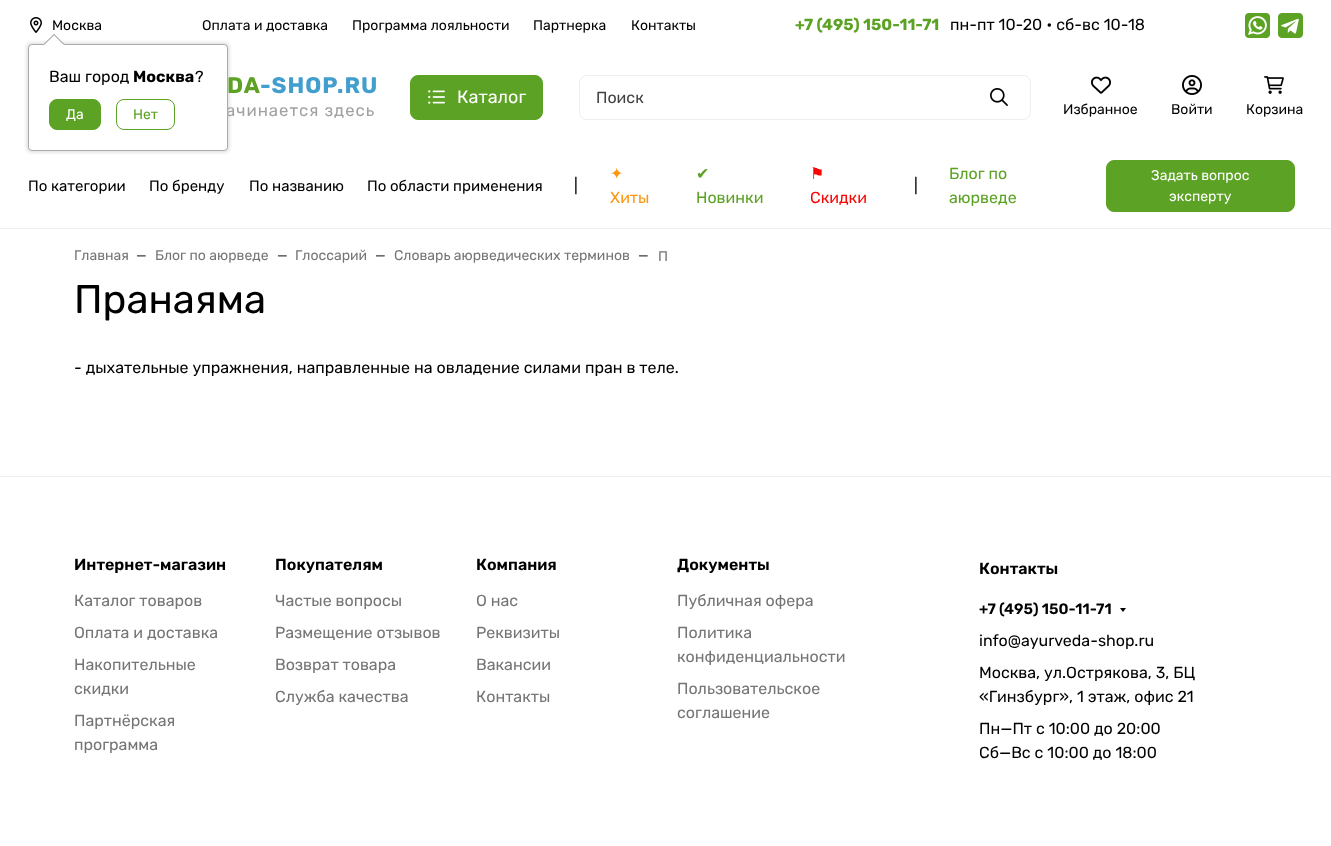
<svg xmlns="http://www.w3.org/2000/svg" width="1331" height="846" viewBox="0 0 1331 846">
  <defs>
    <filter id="blur1" x="-50%" y="-200%" width="200%" height="500%"><feGaussianBlur stdDeviation="1.5"/></filter>
  </defs>
  <rect width="100%" height="100%" fill="#ffffff"/>
  <rect x="0" y="228" width="1331" height="1" fill="#eeeeee"/>
  <image x="30" y="17" width="12" height="16" href="img1.png"/>
  <text x="52" y="30" font-family="'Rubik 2'" font-size="14" font-weight="300" fill="#000000">Москва</text>
  <rect x="26" y="42" width="204" height="111" rx="6" fill="#000000" fill-opacity="0.1" filter="url(#blur1)"/>
  <text x="226" y="116" font-family="'Rubik 2'" font-size="16.75" font-weight="300" letter-spacing="1" fill="#a1a1a1">ачинается здесь</text>
  <rect x="28.5" y="44.5" width="199" height="106" rx="3.5" fill="#ffffff" stroke="#aaaaaa"/>
  <path d="M64 44H44L54 34Z" fill="#808080"/>
  <path d="M64 45H44L54 35Z" fill="#ffffff"/>
  <text x="49" y="82" font-family="'Rubik 2'" font-size="16" font-weight="300" fill="#000000">Ваш город</text>
  <text x="133" y="82" font-family="Rubik" font-size="16" font-weight="300" fill="#000000">Москва</text>
  <text x="195" y="82" font-family="'Rubik 2'" font-size="16" font-weight="300" fill="#000000">?</text>
  <rect x="49.5" y="99.5" width="51" height="30" rx="7.5" fill="#5ca224" stroke="#5ca224"/>
  <text x="66" y="119" font-family="'Rubik 2'" font-size="14" font-weight="300" fill="#ffffff">Да</text>
  <rect x="116.5" y="99.5" width="58" height="30" rx="7.5" fill="none" stroke="#5ca224"/>
  <text x="133" y="119" font-family="'Rubik 2'" font-size="14" font-weight="300" fill="#5ca224">Нет</text>
  <text x="202" y="30" font-family="'Rubik 2'" font-size="14" font-weight="300" fill="#000000">Оплата и доставка</text>
  <text x="352" y="30" font-family="'Rubik 2'" font-size="14" font-weight="300" fill="#000000">Программа лояльности</text>
  <text x="533" y="30" font-family="'Rubik 2'" font-size="14" font-weight="300" fill="#000000">Партнерка</text>
  <text x="631" y="30" font-family="'Rubik 2'" font-size="14" font-weight="300" fill="#000000">Контакты</text>
  <text x="795" y="30" font-family="Rubik" font-size="16" font-weight="300" fill="#5ca224">+7 (495) 150-11-71</text>
  <text x="950" y="30" font-family="'Rubik 2'" font-size="16" font-weight="300" fill="#000000">пн-пт 10-20 • сб-вс 10-18</text>
  <image x="1245" y="13" width="25" height="25" href="img2.png"/>
  <image x="1278" y="13" width="25" height="25" href="img3.png"/>
  <text x="227" y="93" font-family="Rubik" font-size="22.5" font-weight="300" letter-spacing="1" fill="#5ca224">DA</text>
  <text x="260" y="93" font-family="Rubik" font-size="22.5" font-weight="300" letter-spacing="1" fill="#419ecd">-SHOP.RU</text>
  <rect x="410.5" y="75.5" width="132" height="44" rx="7.5" fill="#5ca224" stroke="#5ca224"/>
  <image x="428" y="90" width="17" height="14" href="img4.png"/>
  <text x="457" y="103" font-family="'Rubik 2'" font-size="18" font-weight="300" fill="#ffffff">Каталог</text>
  <rect x="579.5" y="75.5" width="451" height="44" rx="7.5" fill="none" stroke="#eeeeee"/>
  <text x="596" y="103" font-family="'Rubik 2'" font-size="16" font-weight="300" fill="#404040">Поиск</text>
  <image x="990" y="88" width="18" height="18" href="img5.png"/>
  <image x="1091" y="76" width="20" height="18" href="img6.png"/>
  <text x="1063" y="114" font-family="'Rubik 2'" font-size="14" font-weight="300" fill="#000000">Избранное</text>
  <image x="1182" y="75" width="20" height="20" href="img7.png"/>
  <text x="1171" y="114" font-family="'Rubik 2'" font-size="14" font-weight="300" fill="#000000">Войти</text>
  <image x="1264" y="76" width="20" height="18" href="img8.png"/>
  <text x="1246" y="114" font-family="'Rubik 2'" font-size="14" font-weight="300" fill="#000000">Корзина</text>
  <text x="28" y="191" font-family="'Rubik 2'" font-size="15" font-weight="300" fill="#000000">По категории</text>
  <text x="149" y="191" font-family="'Rubik 2'" font-size="15" font-weight="300" fill="#000000">По бренду</text>
  <text x="249" y="191" font-family="'Rubik 2'" font-size="15" font-weight="300" fill="#000000">По названию</text>
  <text x="367" y="191" font-family="'Rubik 2'" font-size="15" font-weight="300" fill="#000000">По области применения</text>
  <text x="574" y="191" font-family="'Rubik 2'" font-size="16" font-weight="300" fill="#000000">|</text>
  <text x="610" y="179" font-family="DejaVu Sans" font-size="16" fill="#fc960f">✦</text>
  <text x="610" y="203" font-family="'Rubik 2'" font-size="16" font-weight="300" fill="#fc960f">Хиты</text>
  <text x="696" y="179" font-family="DejaVu Sans" font-size="16" fill="#5ca224">✔</text>
  <text x="696" y="203" font-family="'Rubik 2'" font-size="16" font-weight="300" fill="#5ca224">Новинки</text>
  <text x="810" y="179" font-family="DejaVu Sans" font-size="16" fill="#fb0404">⚑</text>
  <text x="810" y="203" font-family="'Rubik 2'" font-size="16" font-weight="300" fill="#fb0404">Скидки</text>
  <text x="914" y="191" font-family="'Rubik 2'" font-size="16" font-weight="300" fill="#000000">|</text>
  <text x="949" y="179" font-family="'Rubik 2'" font-size="16" font-weight="300" fill="#5ca224">Блог по</text>
  <text x="949" y="203" font-family="'Rubik 2'" font-size="16" font-weight="300" fill="#5ca224">аюрведе</text>
  <rect x="1106.5" y="160.5" width="188" height="51" rx="7.5" fill="#5ca224" stroke="#5ca224"/>
  <text x="1151" y="180" font-family="'Rubik 2'" font-size="14" font-weight="300" fill="#ffffff">Задать вопрос</text>
  <text x="1169" y="201" font-family="'Rubik 2'" font-size="14" font-weight="300" fill="#ffffff">эксперту</text>
  <text x="74" y="260" font-family="'Rubik 2'" font-size="14" font-weight="300" fill="#757575">Главная</text>
  <text x="136" y="260" font-family="'Rubik 2'" font-size="14" font-weight="300" fill="#404040">—</text>
  <text x="155" y="260" font-family="'Rubik 2'" font-size="14" font-weight="300" fill="#757575">Блог по аюрведе</text>
  <text x="277" y="260" font-family="'Rubik 2'" font-size="14" font-weight="300" fill="#404040">—</text>
  <text x="295" y="260" font-family="'Rubik 2'" font-size="14" font-weight="300" fill="#757575">Глоссарий</text>
  <text x="375" y="260" font-family="'Rubik 2'" font-size="14" font-weight="300" fill="#404040">—</text>
  <text x="394" y="260" font-family="'Rubik 2'" font-size="14" font-weight="300" fill="#757575">Словарь аюрведических терминов</text>
  <text x="638" y="260" font-family="'Rubik 2'" font-size="14" font-weight="300" fill="#404040">—</text>
  <text x="658" y="261" font-family="'Rubik 2'" font-size="14" font-weight="300" fill="#757575">П</text>
  <text x="74" y="313" font-family="'Rubik 2'" font-size="40" font-weight="300" fill="#000000">Пранаяма</text>
  <text x="74" y="373" font-family="'Rubik 2'" font-size="16" font-weight="300" fill="#000000">- дыхательные упражнения, направленные на овладение силами пран в теле.</text>
  <rect x="0" y="476" width="1331" height="1" fill="#eeeeee"/>
  <text x="74" y="570" font-family="Rubik" font-size="16" font-weight="600" fill="#000000">Интернет-магазин</text>
  <text x="74" y="606" font-family="'Rubik 2'" font-size="16" font-weight="300" fill="#757575">Каталог товаров</text>
  <text x="74" y="638" font-family="'Rubik 2'" font-size="16" font-weight="300" fill="#757575">Оплата и доставка</text>
  <text x="74" y="670" font-family="'Rubik 2'" font-size="16" font-weight="300" fill="#757575">Накопительные</text>
  <text x="74" y="694" font-family="'Rubik 2'" font-size="16" font-weight="300" fill="#757575">скидки</text>
  <text x="74" y="726" font-family="'Rubik 2'" font-size="16" font-weight="300" fill="#757575">Партнёрская</text>
  <text x="74" y="750" font-family="'Rubik 2'" font-size="16" font-weight="300" fill="#757575">программа</text>
  <text x="275" y="570" font-family="Rubik" font-size="16" font-weight="600" fill="#000000">Покупателям</text>
  <text x="275" y="606" font-family="'Rubik 2'" font-size="16" font-weight="300" fill="#757575">Частые вопросы</text>
  <text x="275" y="638" font-family="'Rubik 2'" font-size="16" font-weight="300" fill="#757575">Размещение отзывов</text>
  <text x="275" y="670" font-family="'Rubik 2'" font-size="16" font-weight="300" fill="#757575">Возврат товара</text>
  <text x="275" y="702" font-family="'Rubik 2'" font-size="16" font-weight="300" fill="#757575">Служба качества</text>
  <text x="476" y="570" font-family="Rubik" font-size="16" font-weight="600" fill="#000000">Компания</text>
  <text x="476" y="606" font-family="'Rubik 2'" font-size="16" font-weight="300" fill="#757575">О нас</text>
  <text x="476" y="638" font-family="'Rubik 2'" font-size="16" font-weight="300" fill="#757575">Реквизиты</text>
  <text x="476" y="670" font-family="'Rubik 2'" font-size="16" font-weight="300" fill="#757575">Вакансии</text>
  <text x="476" y="702" font-family="'Rubik 2'" font-size="16" font-weight="300" fill="#757575">Контакты</text>
  <text x="677" y="570" font-family="Rubik" font-size="16" font-weight="600" fill="#000000">Документы</text>
  <text x="677" y="606" font-family="'Rubik 2'" font-size="16" font-weight="300" fill="#757575">Публичная офера</text>
  <text x="677" y="638" font-family="'Rubik 2'" font-size="16" font-weight="300" fill="#757575">Политика</text>
  <text x="677" y="662" font-family="'Rubik 2'" font-size="16" font-weight="300" fill="#757575">конфиденциальности</text>
  <text x="677" y="694" font-family="'Rubik 2'" font-size="16" font-weight="300" fill="#757575">Пользовательское</text>
  <text x="677" y="718" font-family="'Rubik 2'" font-size="16" font-weight="300" fill="#757575">соглашение</text>
  <text x="979" y="574" font-family="Rubik" font-size="16" font-weight="600" fill="#000000">Контакты</text>
  <text x="979" y="614" font-family="Rubik" font-size="15" font-weight="600" fill="#000000">+7 (495) 150-11-71</text>
  <path d="M1120 608H1126L1123 612Z" fill="#000000"/>
  <text x="979" y="646" font-family="'Rubik 2'" font-size="16" font-weight="300" fill="#000000">info@ayurveda-shop.ru</text>
  <text x="979" y="678" font-family="'Rubik 2'" font-size="16" font-weight="300" fill="#000000">Москва, ул.Острякова, 3, БЦ</text>
  <text x="979" y="702" font-family="'Rubik 2'" font-size="16" font-weight="300" fill="#000000">«Гинзбург», 1 этаж, офис 21</text>
  <text x="979" y="734" font-family="'Rubik 2'" font-size="16" font-weight="300" fill="#000000">Пн—Пт с 10:00 до 20:00</text>
  <text x="979" y="758" font-family="'Rubik 2'" font-size="16" font-weight="300" fill="#000000">Сб—Вс с 10:00 до 18:00</text>
</svg>
